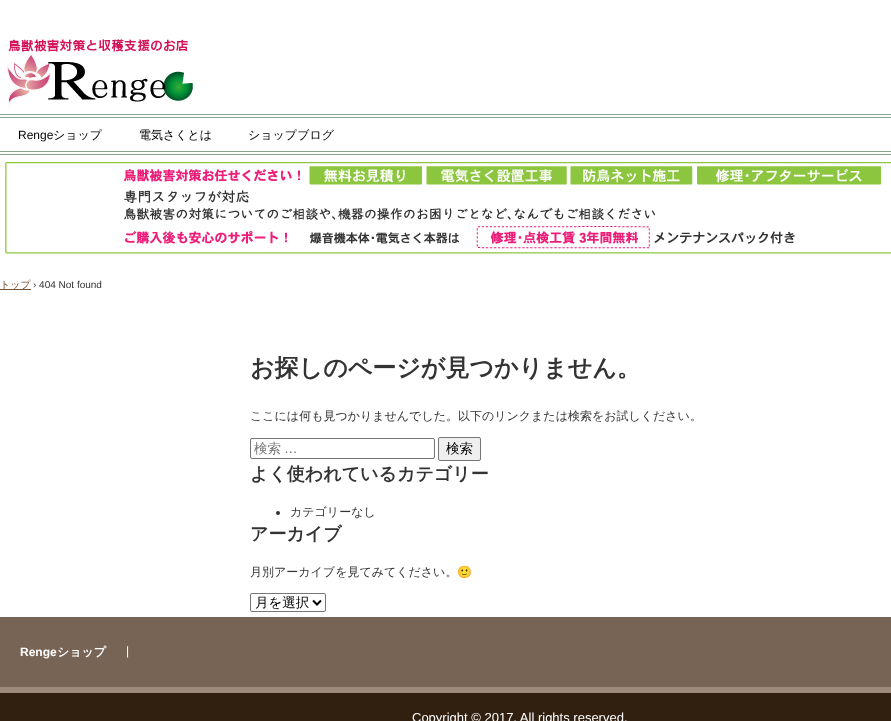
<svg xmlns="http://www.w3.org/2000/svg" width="891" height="721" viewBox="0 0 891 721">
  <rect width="100%" height="100%" fill="#ffffff"/>
  <image x="7" y="39" width="186" height="66" href="img1.png"/>
  <rect x="0" y="114" width="891" height="1" fill="#88a28d"/>
  <rect x="0" y="117" width="891" height="1" fill="#88a28d"/>
  <rect x="0" y="151" width="891" height="1" fill="#88a28d"/>
  <rect x="0" y="154" width="891" height="1" fill="#88a28d"/>
  <text x="18" y="139" font-family="Liberation Sans" font-size="12" fill="#000000">Renge</text>
  <text x="53" y="139" font-family="WenQuanYi Zen Hei" font-size="12" font-weight="500" fill="#000000">ショップ</text>
  <text x="139" y="139" font-family="WenQuanYi Zen Hei" font-size="12" font-weight="500" fill="#000000">電気さくとは</text>
  <text x="248" y="139" font-family="WenQuanYi Zen Hei" font-size="12" font-weight="500" fill="#000000">ショップブログ</text>
  <image x="0" y="155" width="891" height="105" href="img2.png"/>
  <rect x="0" y="289" width="31" height="1" fill="#735237"/>
  <text x="0" y="288" font-family="WenQuanYi Zen Hei" font-size="10" font-weight="500" fill="#735237">トップ</text>
  <text x="33" y="288" font-family="Liberation Sans" font-size="10" fill="#333333">› 404 Not found</text>
  <text x="250" y="376" font-family="WenQuanYi Zen Hei" font-size="24" font-weight="bold" fill="#333333">お探しのページが見つかりません。</text>
  <text x="250" y="420" font-family="WenQuanYi Zen Hei" font-size="12" font-weight="500" fill="#333333">ここには何も見つかりませんでした。以下のリンクまたは検索をお試しください。</text>
  <rect x="250.5" y="438.5" width="184" height="20" rx="1.5" fill="none" stroke="#767676"/>
  <text x="254" y="453" font-family="WenQuanYi Zen Hei" font-size="13.5" font-weight="500" fill="#757575">検索</text>
  <text x="284" y="453" font-family="Liberation Sans" font-size="13.5" fill="#757575">…</text>
  <rect x="438.5" y="437.5" width="42" height="23" rx="1.5" fill="#efefef" stroke="#767676"/>
  <text x="446" y="453" font-family="WenQuanYi Zen Hei" font-size="13.5" font-weight="500" fill="#000000">検索</text>
  <text x="250" y="480" font-family="WenQuanYi Zen Hei" font-size="18" font-weight="bold" fill="#333333">よく使われているカテゴリー</text>
  <circle cx="278" cy="513" r="2" fill="#333333"/>
  <text x="290" y="516" font-family="WenQuanYi Zen Hei" font-size="12" font-weight="500" fill="#333333">カテゴリーなし</text>
  <text x="250" y="540" font-family="WenQuanYi Zen Hei" font-size="18" font-weight="bold" fill="#333333">アーカイブ</text>
  <text x="250" y="576" font-family="WenQuanYi Zen Hei" font-size="12" font-weight="500" fill="#333333">月別アーカイブを見てみてください。</text>
  <text x="457" y="576" font-family="Noto Color Emoji" font-size="12" fill="#333333">🙂</text>
  <rect x="250.5" y="593.5" width="75" height="18" rx="1.5" fill="none" stroke="#767676"/>
  <path d="M313 600.5L317 604.5L321 600.5" fill="none" stroke="#000000" stroke-width="2"/>
  <text x="255" y="607" font-family="WenQuanYi Zen Hei" font-size="13.5" font-weight="500" fill="#000000">月を選択</text>
  <rect x="0" y="687" width="891" height="6" fill="#9e8a79"/>
  <rect x="0" y="617" width="891" height="70" fill="#776454"/>
  <text x="20" y="656" font-family="Liberation Sans" font-size="12" font-weight="bold" fill="#ffffff">Renge</text>
  <text x="57" y="656" font-family="WenQuanYi Zen Hei" font-size="12" font-weight="bold" fill="#ffffff">ショップ</text>
  <text x="126" y="655" font-family="Liberation Sans" font-size="12" fill="#ffffff">|</text>
  <rect x="0" y="693" width="891" height="28" fill="#312010"/>
  <text x="412" y="722" font-family="Liberation Sans" font-size="13" fill="#ffffff">Copyright © 2017, All rights reserved.</text>
</svg>
